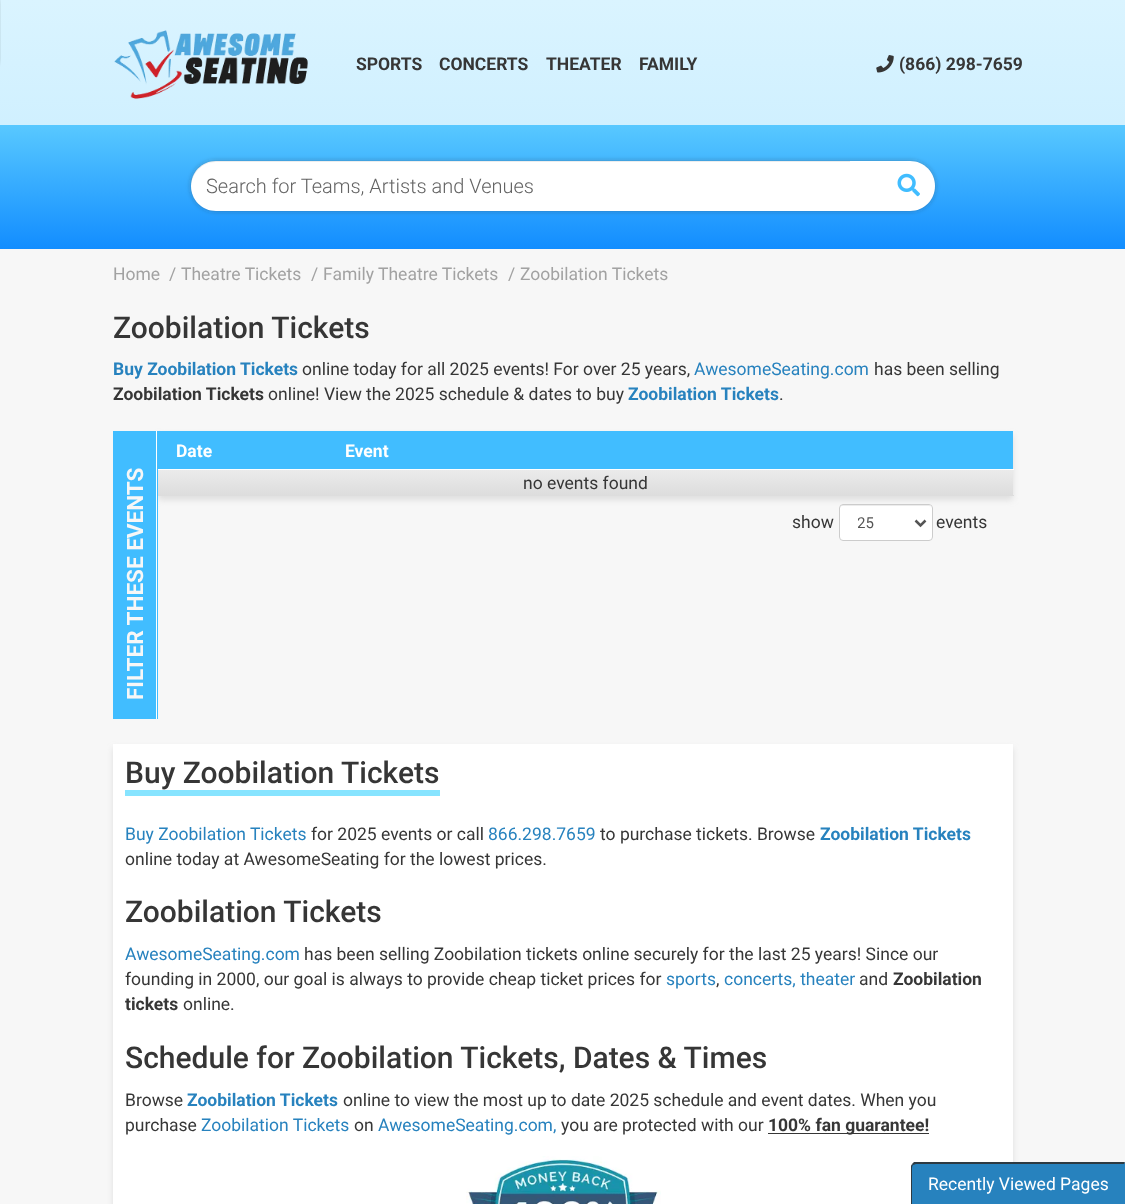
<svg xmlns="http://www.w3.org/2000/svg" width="1125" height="1204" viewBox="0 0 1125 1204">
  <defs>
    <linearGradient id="g1" gradientUnits="userSpaceOnUse" x1="563" y1="0" x2="563" y2="125"><stop offset="0" stop-color="#daf4ff"/><stop offset="1" stop-color="#d0f0ff"/></linearGradient>
    <filter id="blur1" x="-50%" y="-200%" width="200%" height="500%"><feGaussianBlur stdDeviation="2.5"/></filter>
    <linearGradient id="g2" gradientUnits="userSpaceOnUse" x1="563" y1="124" x2="563" y2="249"><stop offset="0" stop-color="#59c9ff"/><stop offset="1" stop-color="#128dff"/></linearGradient>
    <filter id="blur2" x="-50%" y="-200%" width="200%" height="500%"><feGaussianBlur stdDeviation="3"/></filter>
    <linearGradient id="g3" gradientUnits="userSpaceOnUse" x1="585" y1="470" x2="585" y2="495"><stop offset="0" stop-color="#ebebeb"/><stop offset="1" stop-color="#dddddd"/></linearGradient>
    <clipPath id="clip1"><rect x="858" y="513" width="41" height="20"/></clipPath>
  </defs>
  <rect width="100%" height="100%" fill="#f7f7f7"/>
  <rect x="0" y="0" width="1125" height="125" fill="url(#g1)"/>
  <rect x="-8" y="0" width="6" height="63" fill="#363636" fill-opacity="0.35" filter="url(#blur1)"/>
  <image x="114" y="30" width="194" height="69" href="img1.png"/>
  <text x="356" y="70" font-family="Roboto" font-size="17.5" font-weight="bold" fill="#363636">SPORTS</text>
  <text x="439" y="70" font-family="Roboto" font-size="17.5" font-weight="bold" fill="#363636">CONCERTS</text>
  <text x="546" y="70" font-family="Roboto" font-size="17.5" font-weight="bold" fill="#363636">THEATER</text>
  <text x="639" y="70" font-family="Roboto" font-size="17.5" font-weight="bold" fill="#363636">FAMILY</text>
  <image x="876" y="55" width="18" height="18" href="img2.png"/>
  <text x="899" y="70" font-family="Roboto" font-size="17.5" font-weight="bold" fill="#363636">(866) 298-7659</text>
  <rect x="0" y="125" width="1125" height="124" fill="url(#g2)"/>
  <rect x="191" y="161" width="744" height="50" rx="25" fill="#363636" fill-opacity="0.35" filter="url(#blur1)"/>
  <path d="M216 161H851V211H216C202 211 191 200 191 186C191 172 202 161 216 161Z" fill="#ffffff"/>
  <path d="M216 162H851V161H216C202 161 190 173 191 187C192 173 202 162 216 162Z" fill="#000000" fill-opacity="0.07"/>
  <text x="206" y="193" font-family="Roboto" font-size="20" font-weight="300" fill="#636363">Search for Teams, Artists and Venues</text>
  <path d="M850 161H910C924 161 935 172 935 186C935 200 924 211 910 211H850Z" fill="#ffffff"/>
  <image x="897" y="173" width="23" height="24" href="img3.png"/>
  <text x="113" y="280" font-family="Roboto" font-size="17.5" fill="#a2a2a2">Home</text>
  <text x="169" y="280" font-family="Roboto" font-size="17.5" fill="#a2a2a2">/</text>
  <text x="181" y="280" font-family="Roboto" font-size="17.5" fill="#a2a2a2">Theatre Tickets</text>
  <text x="311" y="280" font-family="Roboto" font-size="17.5" fill="#a2a2a2">/</text>
  <text x="323" y="280" font-family="Roboto" font-size="17.5" fill="#a2a2a2">Family Theatre Tickets</text>
  <text x="508" y="280" font-family="Roboto" font-size="17.5" fill="#a2a2a2">/</text>
  <text x="520" y="280" font-family="Roboto" font-size="17.5" fill="#a2a2a2">Zoobilation Tickets</text>
  <text x="113" y="338" font-family="Roboto" font-size="30" font-weight="500" fill="#363636">Zoobilation Tickets</text>
  <text x="113" y="375" font-family="Roboto" font-size="17.5" font-weight="bold" fill="#2782be">Buy Zoobilation Tickets</text>
  <text x="302" y="375" font-family="Roboto" font-size="17.5" fill="#363636">online today for all 2025 events! For over 25 years,</text>
  <text x="694" y="375" font-family="Roboto" font-size="17.5" fill="#2782be">AwesomeSeating.com</text>
  <text x="874" y="375" font-family="Roboto" font-size="17.5" fill="#363636">has been selling</text>
  <text x="113" y="400" font-family="Roboto" font-size="17.5" font-weight="bold" fill="#363636">Zoobilation Tickets</text>
  <text x="268" y="400" font-family="Roboto" font-size="17.5" fill="#363636">online! View the 2025 schedule &amp; dates to buy</text>
  <text x="628" y="400" font-family="Roboto" font-size="17.5" font-weight="bold" fill="#2782be">Zoobilation Tickets</text>
  <text x="779" y="400" font-family="Roboto" font-size="17.5" fill="#363636">.</text>
  <rect x="158" y="435" width="855" height="65" fill="#b2b2b2" fill-opacity="0.35" filter="url(#blur2)"/>
  <rect x="113" y="431" width="45" height="288" fill="#41bdff"/>
  <rect x="156" y="431" width="1" height="288" fill="#ffffff"/>
  <text x="143" y="700" transform="rotate(-90 143 700)" font-family="Roboto" font-size="22.5" font-weight="bold" fill="#f7f7f7">FILTER THESE EVENTS</text>
  <rect x="158" y="431" width="855" height="38" fill="#41bdff"/>
  <text x="176" y="457" font-family="Roboto" font-size="17.5" font-weight="bold" fill="#ffffff">Date</text>
  <text x="345" y="457" font-family="Roboto" font-size="17.5" font-weight="bold" fill="#ffffff">Event</text>
  <rect x="158" y="469" width="856" height="1" fill="#ffffff"/>
  <rect x="158" y="470" width="855" height="25" fill="url(#g3)"/>
  <rect x="158" y="495" width="856" height="1" fill="#dddddd"/>
  <text x="523" y="489" font-family="Roboto" font-size="17.5" fill="#363636">no events found</text>
  <text x="792" y="528" font-family="Roboto" font-size="17.5" fill="#363636">show</text>
  <rect x="839" y="504" width="94" height="37" rx="4" fill="#ffffff"/>
  <path d="M842 506H929C930 506 931 507 931 509C931 501 920 505 914 505H857C851 505 840 501 840 509C840 507 841 506 842 506Z" fill="#ececec"/>
  <rect x="839.5" y="504.5" width="93" height="36" rx="3.5" fill="none" stroke="#cccccc"/>
  <path d="M915.5 520.5L920.5 525.5L925.5 520.5" fill="none" stroke="#555555" stroke-width="2.5"/>
  <g clip-path="url(#clip1)">
    <text x="857" y="528" font-family="Roboto" font-size="15" fill="#555555">25</text>
  </g>
  <text x="936" y="528" font-family="Roboto" font-size="17.5" fill="#363636">events</text>
  <rect x="113" y="748" width="900" height="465" fill="#b2b2b2" fill-opacity="0.35" filter="url(#blur2)"/>
  <rect x="113" y="744" width="900" height="460" fill="#ffffff"/>
  <rect x="125" y="790" width="315" height="6" fill="#87e4ff"/>
  <text x="125" y="783" font-family="Roboto" font-size="30" font-weight="500" fill="#363636">Buy Zoobilation</text>
  <text x="341" y="783" font-family="Roboto" font-size="30" font-weight="500" fill="#363636">Tickets</text>
  <text x="125" y="840" font-family="Roboto" font-size="17.5" fill="#2782be">Buy Zoobilation Tickets</text>
  <text x="311" y="840" font-family="Roboto" font-size="17.5" fill="#363636">for 2025 events or call</text>
  <text x="488" y="840" font-family="Roboto" font-size="17.5" fill="#2782be">866.298.7659</text>
  <text x="600" y="840" font-family="Roboto" font-size="17.5" fill="#363636">to purchase tickets. Browse</text>
  <text x="820" y="840" font-family="Roboto" font-size="17.5" font-weight="bold" fill="#2782be">Zoobilation Tickets</text>
  <text x="125" y="865" font-family="Roboto" font-size="17.5" fill="#363636">online today at AwesomeSeating for the lowest prices.</text>
  <text x="125" y="922" font-family="Roboto" font-size="30" font-weight="500" fill="#363636">Zoobilation Tickets</text>
  <text x="125" y="960" font-family="Roboto" font-size="17.5" fill="#2782be">AwesomeSeating.com</text>
  <text x="304" y="960" font-family="Roboto" font-size="17.5" fill="#363636">has been selling Zoobilation tickets online securely for the last 25 years! Since our</text>
  <text x="125" y="985" font-family="Roboto" font-size="17.5" fill="#363636">founding in 2000, our goal is always to provide cheap ticket prices for</text>
  <text x="666" y="985" font-family="Roboto" font-size="17.5" fill="#2782be">sports</text>
  <text x="716" y="985" font-family="Roboto" font-size="17.5" fill="#363636">,</text>
  <text x="724" y="985" font-family="Roboto" font-size="17.5" fill="#2782be">concerts, theater</text>
  <text x="859" y="985" font-family="Roboto" font-size="17.5" fill="#363636">and</text>
  <text x="893" y="985" font-family="Roboto" font-size="17.5" font-weight="bold" fill="#363636">Zoobilation</text>
  <text x="125" y="1010" font-family="Roboto" font-size="17.5" font-weight="bold" fill="#363636">tickets</text>
  <text x="183" y="1010" font-family="Roboto" font-size="17.5" fill="#363636">online.</text>
  <text x="125" y="1068" font-family="Roboto" font-size="30" font-weight="500" fill="#363636">Schedule for Zoobilation Tickets, Dates &amp; Times</text>
  <text x="125" y="1106" font-family="Roboto" font-size="17.5" fill="#363636">Browse</text>
  <text x="187" y="1106" font-family="Roboto" font-size="17.5" font-weight="bold" fill="#2782be">Zoobilation Tickets</text>
  <text x="343" y="1106" font-family="Roboto" font-size="17.5" fill="#363636">online to view the most up to date 2025 schedule and event dates. When you</text>
  <text x="125" y="1131" font-family="Roboto" font-size="17.5" fill="#363636">purchase</text>
  <text x="201" y="1131" font-family="Roboto" font-size="17.5" fill="#2782be">Zoobilation Tickets</text>
  <text x="354" y="1131" font-family="Roboto" font-size="17.5" fill="#363636">on</text>
  <text x="378" y="1131" font-family="Roboto" font-size="17.5" fill="#2782be">AwesomeSeating.com,</text>
  <text x="561" y="1131" font-family="Roboto" font-size="17.5" fill="#363636">you are protected with our</text>
  <rect x="768" y="1133" width="161" height="1" fill="#363636"/>
  <text x="768" y="1131" font-family="Roboto" font-size="17.5" font-weight="bold" fill="#363636">100% fan guarantee!</text>
  <image x="466" y="1156" width="195" height="48" href="img4.png"/>
  <path d="M916 1163H1125V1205H911V1168C911 1165 913 1163 916 1163Z" fill="#2782be"/>
  <path d="M916 1164L913 1165L912 1164L914 1162H1125L1124 1164Z" fill="#2d3a42"/>
  <path d="M911 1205V1166L912 1164L913 1165C913 1165 912 1166 912 1168V1204Z" fill="#2d3a42"/>
  <text x="928" y="1190" font-family="Roboto" font-size="17.5" fill="#ffffff">Recently Viewed Pages</text>
</svg>
